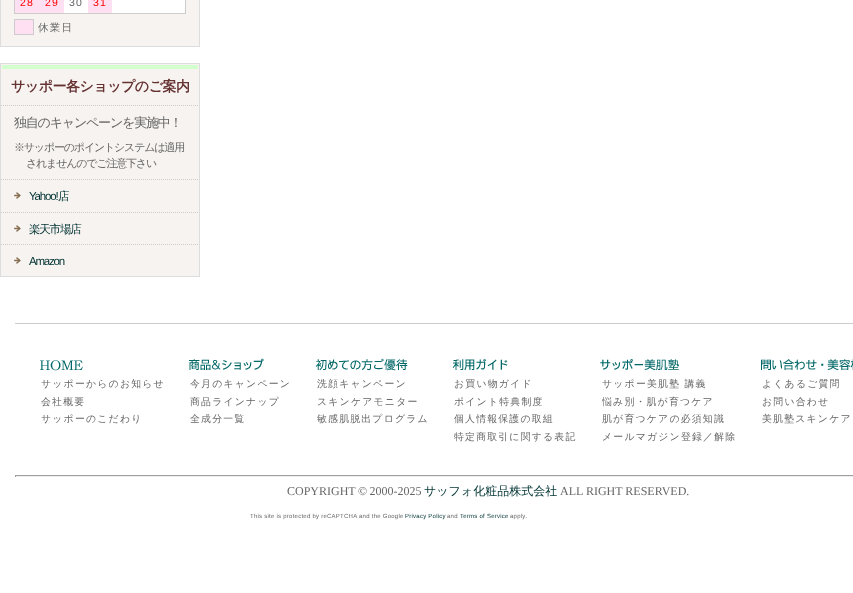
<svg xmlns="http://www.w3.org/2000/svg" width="853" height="593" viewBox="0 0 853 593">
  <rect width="100%" height="100%" fill="#ffffff"/>
  <rect x="0.5" y="-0.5" width="199" height="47" fill="#f7f3f0" stroke="#dddddd"/>
  <rect x="64" y="0" width="121" height="13" fill="#ffffff"/>
  <rect x="185" y="0" width="1" height="14" fill="#cccccc"/>
  <rect x="14" y="13" width="172" height="1" fill="#cccccc"/>
  <rect x="14" y="0" width="1" height="14" fill="#cccccc"/>
  <rect x="15" y="0" width="49" height="13" fill="#ffdff2"/>
  <text x="20" y="6" font-family="Liberation Sans" font-size="10.5" letter-spacing="1.2" fill="#ff0000">28</text>
  <text x="45" y="6" font-family="Liberation Sans" font-size="10.5" letter-spacing="1.2" fill="#ff0000">29</text>
  <text x="69" y="6" font-family="Liberation Sans" font-size="10.5" letter-spacing="1.2" fill="#666666">30</text>
  <rect x="88" y="0" width="24" height="13" fill="#ffdff2"/>
  <text x="93" y="6" font-family="Liberation Sans" font-size="10.5" letter-spacing="1.2" fill="#ff0000">31</text>
  <rect x="14.5" y="19.5" width="19" height="15" fill="#ffdff2" stroke="#cccccc"/>
  <text x="38" y="31" font-family="WenQuanYi Zen Hei" font-size="10.5" font-weight="500" letter-spacing="1.2" fill="#666666">休業日</text>
  <rect x="0.5" y="63.5" width="199" height="213" fill="#f7f3f0" stroke="#dddddd"/>
  <rect x="2" y="65" width="196" height="4" fill="#d3ffcf"/>
  <text x="11" y="91" font-family="WenQuanYi Zen Hei" font-size="14" font-weight="bold" letter-spacing="-0.5" fill="#663333">サッポー各ショップのご案内</text>
  <path d="M1 105.5H199" fill="none" stroke="#cccccc" stroke-dasharray="1 1"/>
  <text x="14" y="127" font-family="WenQuanYi Zen Hei" font-size="13" font-weight="500" letter-spacing="-1.2" fill="#666666">独自のキャンペーンを実施中！</text>
  <text x="14" y="151" font-family="WenQuanYi Zen Hei" font-size="11" font-weight="500" letter-spacing="-1.2" fill="#666666">※サッポーのポイントシステムは適用</text>
  <text x="26" y="167" font-family="WenQuanYi Zen Hei" font-size="11" font-weight="500" letter-spacing="-1.2" fill="#666666">されませんのでご注意下さい</text>
  <path d="M1 179.5H199" fill="none" stroke="#cccccc" stroke-dasharray="1 1"/>
  <image x="14" y="192" width="7" height="7" href="img1.png"/>
  <text x="29" y="200" font-family="Liberation Sans" font-size="11.5" letter-spacing="-1.2" fill="#003333">Yahoo!</text>
  <text x="58" y="200" font-family="WenQuanYi Zen Hei" font-size="11.5" font-weight="500" letter-spacing="-1.2" fill="#003333">店</text>
  <path d="M1 212.5H199" fill="none" stroke="#cccccc" stroke-dasharray="1 1"/>
  <image x="14" y="225" width="7" height="7" href="img1.png"/>
  <text x="29" y="233" font-family="WenQuanYi Zen Hei" font-size="11.5" font-weight="500" letter-spacing="-1.2" fill="#003333">楽天市場店</text>
  <path d="M1 244.5H199" fill="none" stroke="#cccccc" stroke-dasharray="1 1"/>
  <image x="14" y="257" width="7" height="7" href="img1.png"/>
  <text x="29" y="265" font-family="Liberation Sans" font-size="11.5" letter-spacing="-1.2" fill="#003333">Amazon</text>
  <rect x="15" y="323" width="838" height="1" fill="#cccccc"/>
  <image x="40" y="360" width="43" height="11" href="img2.png"/>
  <text x="41" y="387" font-family="WenQuanYi Zen Hei" font-size="9.9" font-weight="500" letter-spacing="1.2" fill="#666666">サッポーからのお知らせ</text>
  <text x="41" y="405" font-family="WenQuanYi Zen Hei" font-size="9.9" font-weight="500" letter-spacing="1.2" fill="#666666">会社概要</text>
  <text x="41" y="422" font-family="WenQuanYi Zen Hei" font-size="9.9" font-weight="500" letter-spacing="1.2" fill="#666666">サッポーのこだわり</text>
  <image x="189" y="358" width="75" height="12" href="img3.png"/>
  <text x="190" y="387" font-family="WenQuanYi Zen Hei" font-size="9.9" font-weight="500" letter-spacing="1.2" fill="#666666">今月のキャンペーン</text>
  <text x="190" y="405" font-family="WenQuanYi Zen Hei" font-size="9.9" font-weight="500" letter-spacing="1.2" fill="#666666">商品ラインナップ</text>
  <text x="190" y="422" font-family="WenQuanYi Zen Hei" font-size="9.9" font-weight="500" letter-spacing="1.2" fill="#666666">全成分一覧</text>
  <image x="315" y="358" width="93" height="13" href="img4.png"/>
  <text x="317" y="387" font-family="WenQuanYi Zen Hei" font-size="9.9" font-weight="500" letter-spacing="1.2" fill="#666666">洗顔キャンペーン</text>
  <text x="317" y="405" font-family="WenQuanYi Zen Hei" font-size="9.9" font-weight="500" letter-spacing="1.2" fill="#666666">スキンケアモニター</text>
  <text x="317" y="422" font-family="WenQuanYi Zen Hei" font-size="9.9" font-weight="500" letter-spacing="1.2" fill="#666666">敏感肌脱出プログラム</text>
  <image x="452" y="359" width="56" height="12" href="img5.png"/>
  <text x="454" y="387" font-family="WenQuanYi Zen Hei" font-size="9.9" font-weight="500" letter-spacing="1.2" fill="#666666">お買い物ガイド</text>
  <text x="454" y="405" font-family="WenQuanYi Zen Hei" font-size="9.9" font-weight="500" letter-spacing="1.2" fill="#666666">ポイント特典制度</text>
  <text x="454" y="422" font-family="WenQuanYi Zen Hei" font-size="9.9" font-weight="500" letter-spacing="1.2" fill="#666666">個人情報保護の取組</text>
  <text x="454" y="440" font-family="WenQuanYi Zen Hei" font-size="9.9" font-weight="500" letter-spacing="1.2" fill="#666666">特定商取引に関する表記</text>
  <image x="600" y="359" width="79" height="12" href="img6.png"/>
  <text x="602" y="387" font-family="WenQuanYi Zen Hei" font-size="9.9" font-weight="500" letter-spacing="1.2" fill="#666666">サッポー美肌塾 講義</text>
  <text x="602" y="405" font-family="WenQuanYi Zen Hei" font-size="9.9" font-weight="500" letter-spacing="1.2" fill="#666666">悩み別・肌が育つケア</text>
  <text x="602" y="422" font-family="WenQuanYi Zen Hei" font-size="9.9" font-weight="500" letter-spacing="1.2" fill="#666666">肌が育つケアの必須知識</text>
  <text x="602" y="440" font-family="WenQuanYi Zen Hei" font-size="9.9" font-weight="500" letter-spacing="1.2" fill="#666666">メールマガジン登録／解除</text>
  <image x="761" y="359" width="92" height="11" href="img7.png"/>
  <text x="762" y="387" font-family="WenQuanYi Zen Hei" font-size="9.9" font-weight="500" letter-spacing="1.2" fill="#666666">よくあるご質問</text>
  <text x="762" y="405" font-family="WenQuanYi Zen Hei" font-size="9.9" font-weight="500" letter-spacing="1.2" fill="#666666">お問い合わせ</text>
  <text x="762" y="422" font-family="WenQuanYi Zen Hei" font-size="9.9" font-weight="500" letter-spacing="1.2" fill="#666666">美肌塾スキンケア</text>
  <rect x="15" y="475" width="838" height="1" fill="#9f9f9f"/>
  <rect x="15" y="476" width="838" height="1" fill="#eeeeee"/>
  <rect x="15" y="475" width="1" height="2" fill="#9f9f9f"/>
  <text x="287" y="495" font-family="Liberation Serif" font-size="12" fill="#666666">COPYRIGHT © 2000-2025</text>
  <text x="424" y="495" font-family="WenQuanYi Zen Hei" font-size="12" font-weight="500" fill="#003333">サッフォ化粧品株式会社</text>
  <text x="560" y="495" font-family="Liberation Serif" font-size="12" fill="#666666">ALL RIGHT RESERVED.</text>
  <text x="250" y="518" font-family="Liberation Sans" font-size="6" letter-spacing="0.25" fill="#666666">This site is protected by reCAPTCHA and the Google</text>
  <text x="405" y="518" font-family="Liberation Sans" font-size="6" letter-spacing="0.25" fill="#003333">Privacy Policy</text>
  <text x="447" y="518" font-family="Liberation Sans" font-size="6" letter-spacing="0.25" fill="#666666">and</text>
  <text x="460" y="518" font-family="Liberation Sans" font-size="6" letter-spacing="0.25" fill="#003333">Terms of Service</text>
  <text x="510" y="518" font-family="Liberation Sans" font-size="6" letter-spacing="0.25" fill="#666666">apply.</text>
</svg>
